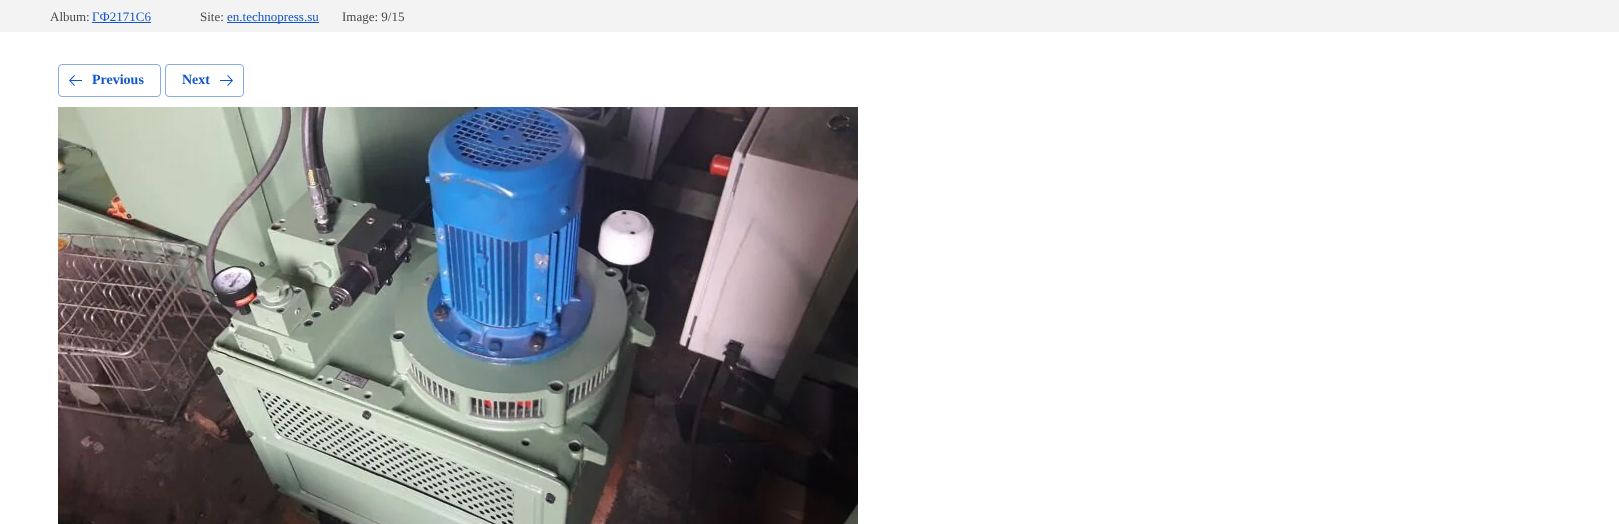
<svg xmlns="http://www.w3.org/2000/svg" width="1619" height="524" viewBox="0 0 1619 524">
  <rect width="100%" height="100%" fill="#ffffff"/>
  <rect x="0" y="0" width="1619" height="32" fill="#f3f3f3"/>
  <text x="50" y="21" font-family="Liberation Serif" font-size="13" fill="#484848">Album:</text>
  <text x="92" y="21" font-family="Liberation Serif" font-size="13" fill="#1155cc">ГФ2171С6</text>
  <rect x="92" y="22" width="59" height="1" fill="#1155cc"/>
  <text x="200" y="21" font-family="Liberation Serif" font-size="13" fill="#484848">Site:</text>
  <rect x="227" y="22" width="92" height="1" fill="#1155cc"/>
  <text x="227" y="21" font-family="Liberation Serif" font-size="13" fill="#1155cc">en.technopress.su</text>
  <text x="342" y="21" font-family="Liberation Serif" font-size="13" fill="#484848">Image: 9/15</text>
  <rect x="58.5" y="64.5" width="102" height="32" rx="3.5" fill="none" stroke="#88aae6"/>
  <image x="69" y="75" width="13" height="11" href="img1.png"/>
  <text x="92" y="84" font-family="Liberation Serif" font-size="14" font-weight="bold" fill="#1155cc">Previous</text>
  <rect x="165.5" y="64.5" width="78" height="32" rx="3.5" fill="none" stroke="#88aae6"/>
  <text x="182" y="84" font-family="Liberation Serif" font-size="14" font-weight="bold" fill="#1155cc">Next</text>
  <image x="220" y="75" width="13" height="11" href="img2.png"/>
  <image x="58" y="107" width="800" height="417" href="img3.png"/>
</svg>
